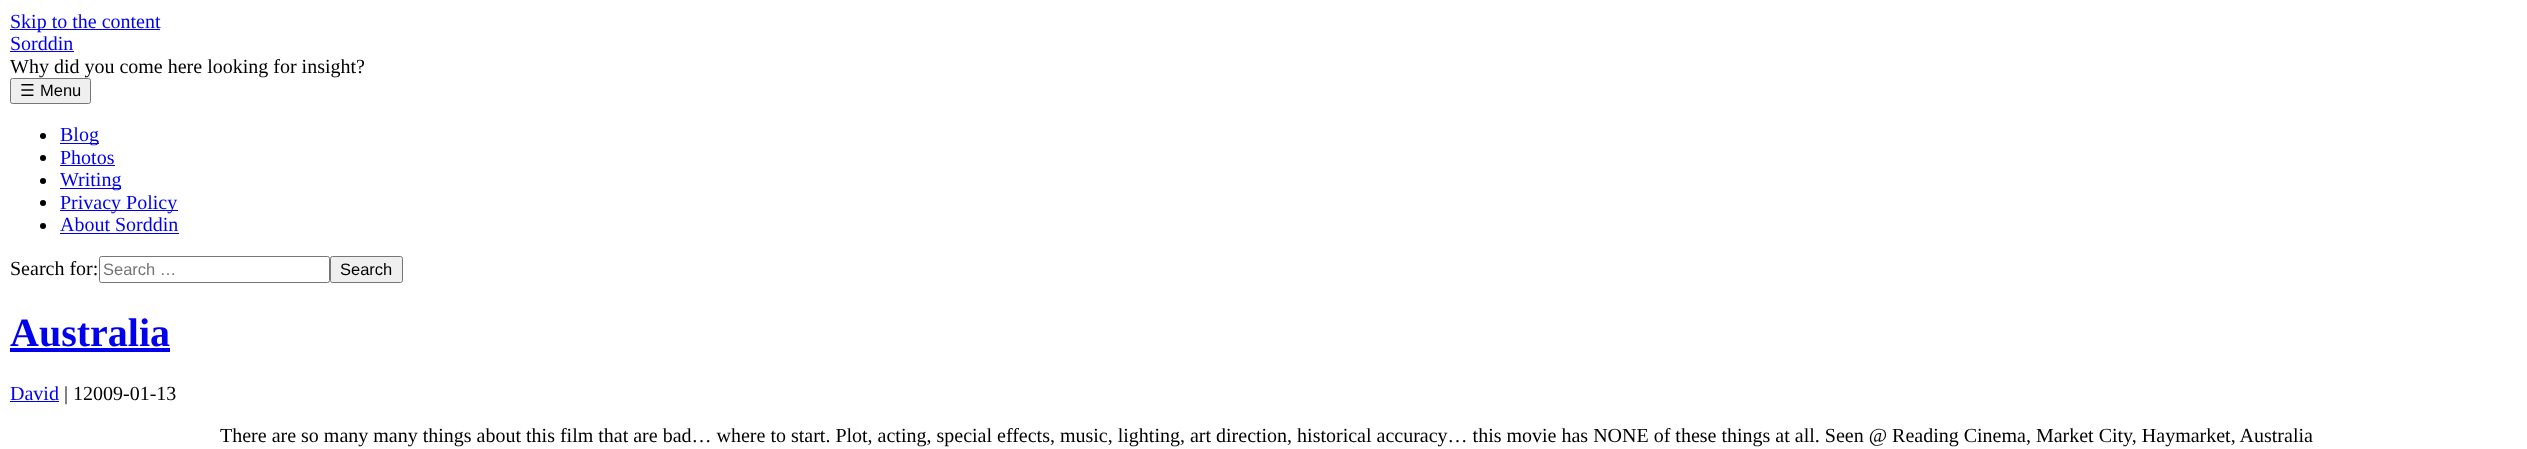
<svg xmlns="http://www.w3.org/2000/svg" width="2527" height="449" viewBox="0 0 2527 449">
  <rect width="100%" height="100%" fill="#ffffff"/>
  <rect x="10" y="29" width="150" height="1" fill="#0000ee"/>
  <text x="10" y="28" font-family="Liberation Serif" font-size="20" fill="#0000ee">Skip to the content</text>
  <text x="10" y="50" font-family="Liberation Serif" font-size="20" fill="#0000ee">Sorddin</text>
  <rect x="10" y="51" width="64" height="1" fill="#0000ee"/>
  <text x="10" y="73" font-family="Liberation Serif" font-size="20" fill="#000000">Why did you come here looking for insight?</text>
  <rect x="10.5" y="78.5" width="80" height="25" rx="2" fill="#efefef" stroke="#767676"/>
  <text x="20" y="96" font-family="DejaVu Sans" font-size="16.5" fill="#000000">☰</text>
  <text x="40" y="96" font-family="Liberation Sans" font-size="16.5" fill="#000000">Menu</text>
  <circle cx="43" cy="136" r="3" fill="#000000"/>
  <rect x="60" y="143" width="39" height="1" fill="#0000ee"/>
  <text x="60" y="141" font-family="Liberation Serif" font-size="20" fill="#0000ee">Blog</text>
  <circle cx="43" cy="158" r="3" fill="#000000"/>
  <text x="60" y="164" font-family="Liberation Serif" font-size="20" fill="#0000ee">Photos</text>
  <rect x="60" y="165" width="55" height="1" fill="#0000ee"/>
  <circle cx="43" cy="181" r="3" fill="#000000"/>
  <rect x="60" y="188" width="61" height="1" fill="#0000ee"/>
  <text x="60" y="186" font-family="Liberation Serif" font-size="20" fill="#0000ee">Writing</text>
  <circle cx="43" cy="203" r="3" fill="#000000"/>
  <rect x="60" y="210" width="118" height="1" fill="#0000ee"/>
  <text x="60" y="209" font-family="Liberation Serif" font-size="20" fill="#0000ee">Privacy Policy</text>
  <circle cx="43" cy="226" r="3" fill="#000000"/>
  <text x="60" y="231" font-family="Liberation Serif" font-size="20" fill="#0000ee">About Sorddin</text>
  <rect x="60" y="233" width="119" height="1" fill="#0000ee"/>
  <text x="10" y="275" font-family="Liberation Serif" font-size="20" fill="#000000">Search for:</text>
  <rect x="99.5" y="256.5" width="230" height="26" rx="2" fill="none" stroke="#767676"/>
  <text x="103" y="275" font-family="Liberation Sans" font-size="16.5" fill="#757575">Search …</text>
  <rect x="330.5" y="256.5" width="72" height="26" rx="2" fill="#efefef" stroke="#767676"/>
  <text x="340" y="275" font-family="Liberation Sans" font-size="16.5" fill="#000000">Search</text>
  <text x="10" y="346" font-family="Liberation Serif" font-size="40" font-weight="bold" fill="#0000ee">Australia</text>
  <rect x="10" y="348" width="160" height="4" fill="#0000ee"/>
  <text x="10" y="400" font-family="Liberation Serif" font-size="20" fill="#0000ee">David</text>
  <rect x="10" y="401" width="49" height="1" fill="#0000ee"/>
  <text x="64" y="400" font-family="Liberation Serif" font-size="20" fill="#000000">| 12009-01-13</text>
  <text x="220" y="442" font-family="Liberation Serif" font-size="20" fill="#000000">There are so many many things about this film that are bad… where to start. Plot, acting, special effects, music, lighting, art direction, historical accuracy… this movie has NONE of these things at all. Seen @ Reading Cinema, Market City, Haymarket, Australia</text>
</svg>
